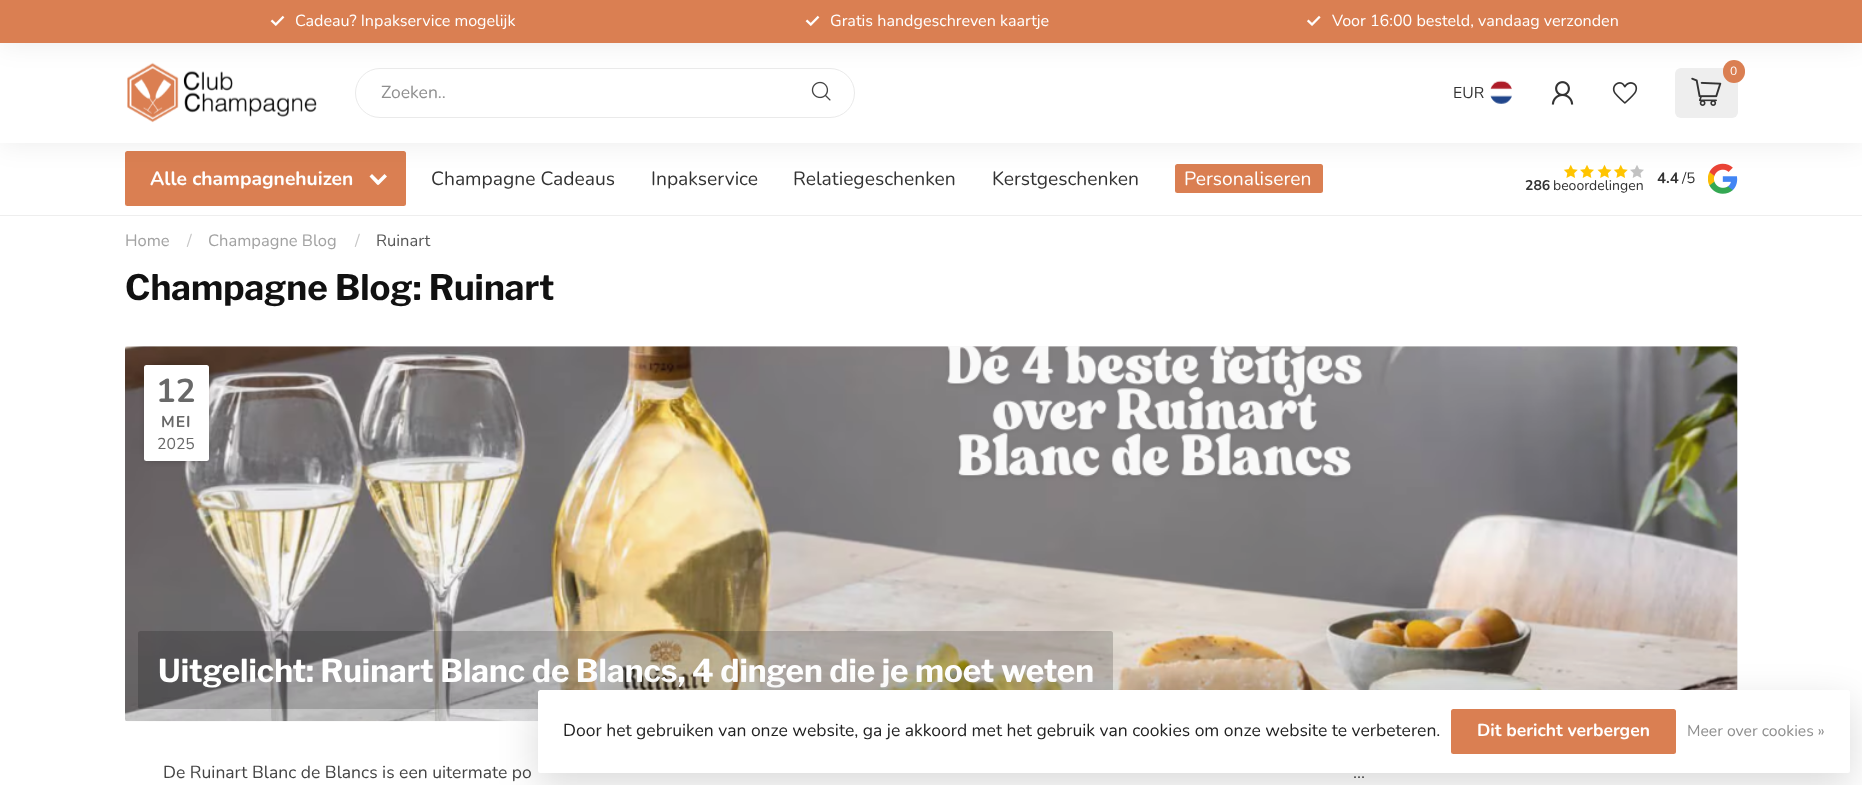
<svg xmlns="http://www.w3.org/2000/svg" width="1862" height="785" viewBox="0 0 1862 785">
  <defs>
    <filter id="blur1" x="-50%" y="-200%" width="200%" height="500%"><feGaussianBlur stdDeviation="14"/></filter>
    <filter id="blur2" x="-50%" y="-200%" width="200%" height="500%"><feGaussianBlur stdDeviation="4"/></filter>
    <filter id="blur3" x="-50%" y="-200%" width="200%" height="500%"><feGaussianBlur stdDeviation="19"/></filter>
  </defs>
  <rect width="100%" height="100%" fill="#ffffff"/>
  <rect x="125" y="151" width="281" height="55" rx="2.5" fill="#da7f52"/>
  <path d="M372 174L380.5 182.5L377.5 185L369.5 176.5Z" fill="#ffffff"/>
  <path d="M376 182.5L384.5 174L387 176.5L378.5 185Z" fill="#ffffff"/>
  <rect x="1175" y="164" width="148" height="29" rx="2.5" fill="#da7f52"/>
  <image x="1563" y="164" width="15" height="14" href="img9.png"/>
  <image x="1580" y="165" width="14" height="13" href="img10.png"/>
  <image x="1597" y="164" width="15" height="14" href="img11.png"/>
  <image x="1613" y="164" width="15" height="14" href="img9.png"/>
  <image x="1630" y="165" width="14" height="13" href="img12.png"/>
  <image x="1708" y="163" width="30" height="31" href="img13.png"/>
  <rect x="0" y="0" width="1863" height="143" fill="#000000" fill-opacity="0.08" filter="url(#blur1)"/>
  <rect x="0" y="43" width="1862" height="100" fill="#ffffff"/>
  <rect x="0" y="0" width="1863" height="43" fill="#000000" fill-opacity="0.08" filter="url(#blur1)"/>
  <rect x="0" y="0" width="1862" height="43" fill="#da7f52"/>
  <image x="270" y="15" width="15" height="11" href="img1.png"/>
  <text x="295" y="26" font-family="Nunito" font-size="16.1" fill="#ffffff">Cadeau? Inpakservice mogelijk</text>
  <image x="805" y="15" width="15" height="11" href="img1.png"/>
  <text x="830" y="26" font-family="Nunito" font-size="16.1" fill="#ffffff">Gratis handgeschreven kaartje</text>
  <image x="1307" y="15" width="14" height="11" href="img2.png"/>
  <text x="1332" y="26" font-family="Nunito" font-size="16.1" fill="#ffffff">Voor 16:00 besteld, vandaag verzonden</text>
  <image x="127" y="62" width="190" height="61" href="img3.png"/>
  <rect x="355.5" y="68.5" width="499" height="49" rx="24.5" fill="none" stroke="#eaeaea"/>
  <text x="381" y="98" font-family="Nunito" font-size="17.5" fill="#8f8f8f">Zoeken..</text>
  <image x="811" y="81" width="20" height="20" href="img4.png"/>
  <rect x="1675" y="68" width="63" height="50" rx="6" fill="#eeeeee"/>
  <rect x="1723" y="60" width="22" height="23" rx="11" fill="#da7f52"/>
  <text x="1730" y="75" font-family="Nunito" font-size="12" fill="#ffffff">0</text>
  <image x="1691" y="77" width="31" height="29" href="img5.png"/>
  <text x="1453" y="98" font-family="Nunito" font-size="15.75" fill="#333333">EUR</text>
  <image x="1490" y="80" width="22" height="24" href="img6.png"/>
  <image x="1551" y="81" width="23" height="24" href="img7.png"/>
  <image x="1612" y="82" width="26" height="22" href="img8.png"/>
  <rect x="0" y="215" width="1862" height="1" fill="#eeeeee"/>
  <text x="150" y="185" font-family="Nunito" font-size="19.25" font-weight="bold" fill="#ffffff">Alle champagnehuizen</text>
  <text x="431" y="185" font-family="Nunito" font-size="19.25" fill="#333333">Champagne Cadeaus</text>
  <text x="651" y="185" font-family="Nunito" font-size="19.25" fill="#333333">Inpakservice</text>
  <text x="793" y="185" font-family="Nunito" font-size="19.25" fill="#333333">Relatiegeschenken</text>
  <text x="992" y="185" font-family="Nunito" font-size="19.25" fill="#333333">Kerstgeschenken</text>
  <text x="1184" y="185" font-family="Nunito" font-size="19.25" fill="#ffffff">Personaliseren</text>
  <text x="1657" y="183" font-family="Nunito" font-size="15" font-weight="bold" fill="#333333">4.4</text>
  <text x="1682" y="183" font-family="Nunito" font-size="15" fill="#333333">/5</text>
  <text x="1525" y="190" font-family="Nunito" font-size="14" font-weight="bold" fill="#333333">286</text>
  <text x="1553" y="190" font-family="Nunito" font-size="14" fill="#333333">beoordelingen</text>
  <text x="125" y="246" font-family="Nunito" font-size="16.5" fill="#a2a2a2">Home</text>
  <text x="187" y="246" font-family="Nunito" font-size="16.5" fill="#c7c7c7">/</text>
  <text x="208" y="246" font-family="Nunito" font-size="16.5" fill="#a2a2a2">Champagne Blog</text>
  <text x="355" y="246" font-family="Nunito" font-size="16.5" fill="#c7c7c7">/</text>
  <text x="376" y="246" font-family="Nunito" font-size="16.5" fill="#575757">Ruinart</text>
  <text x="125" y="300" font-family="Libre Franklin" font-size="35" font-weight="bold" fill="#111111">Champagne Blog: Ruinart</text>
  <rect x="125" y="346" width="1613" height="375" fill="#9b9b9b" fill-opacity="0.05"/>
  <image x="125" y="346" width="1613" height="376" href="img14.png"/>
  <rect x="125" y="346" width="1613" height="375" fill="#9b9b9b" fill-opacity="0.06"/>
  <rect x="148" y="369" width="57" height="89" fill="#000000" fill-opacity="0.51" filter="url(#blur2)"/>
  <rect x="144" y="365" width="65" height="96" rx="2.5" fill="#ffffff"/>
  <text x="156" y="402" font-family="Nunito" font-size="33" font-weight="bold" fill="#696969">12</text>
  <text x="161" y="427" font-family="Nunito" font-size="15.75" font-weight="bold" letter-spacing="1" fill="#696969">MEI</text>
  <text x="157" y="449" font-family="Nunito" font-size="15.75" fill="#696969">2025</text>
  <rect x="138" y="631" width="975" height="78" rx="2.5" fill="#000000" fill-opacity="0.18"/>
  <text x="158" y="682" font-family="Libre Franklin" font-size="31.5" font-weight="bold" fill="#ffffff">Uitgelicht: Ruinart Blanc de Blancs, 4 dingen die je moet weten</text>
  <text x="163" y="778" font-family="Nunito" font-size="17.5" fill="#444444">De Ruinart Blanc de Blancs is een uitermate po</text>
  <text x="1353" y="778" font-family="Nunito" font-size="17.5" fill="#444444">...</text>
  <rect x="538" y="703" width="1312" height="82" rx="2.5" fill="#000000" fill-opacity="0.15" filter="url(#blur3)"/>
  <rect x="538" y="690" width="1312" height="83" rx="2.5" fill="#ffffff"/>
  <text x="563" y="736" font-family="Nunito" font-size="17.5" fill="#222222">Door het gebruiken van onze website, ga je akkoord met het gebruik van cookies om onze website te verbeteren.</text>
  <rect x="1451" y="709" width="225" height="45" rx="2.5" fill="#da7f52"/>
  <text x="1477" y="736" font-family="Nunito" font-size="17.5" font-weight="bold" fill="#ffffff">Dit bericht verbergen</text>
  <text x="1687" y="736" font-family="Nunito" font-size="15.75" fill="#8f8f8f">Meer over cookies »</text>
</svg>
